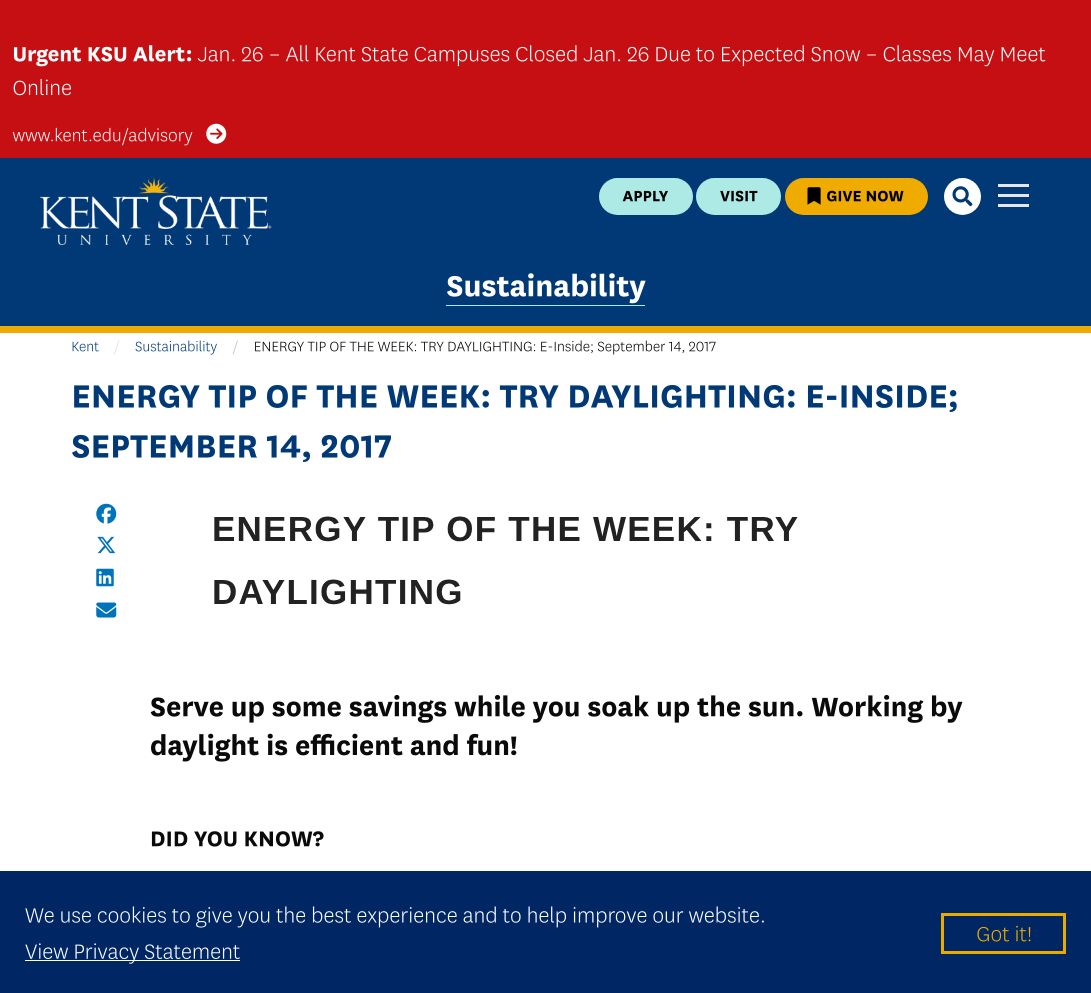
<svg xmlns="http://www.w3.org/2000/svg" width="1091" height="993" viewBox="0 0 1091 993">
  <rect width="100%" height="100%" fill="#ffffff"/>
  <rect x="0" y="0" width="1091" height="158" fill="#c60f13"/>
  <image x="13" y="45" width="179" height="22" href="img1.png"/>
  <image x="197" y="45" width="849" height="22" href="img2.png"/>
  <image x="13" y="79" width="58" height="17" href="img3.png"/>
  <image x="12" y="127" width="181" height="19" href="img4.png"/>
  <image x="206" y="123" width="21" height="21" href="img5.png"/>
  <rect x="0" y="158" width="1091" height="168" fill="#003976"/>
  <rect x="0" y="326" width="1091" height="7" fill="#efab00"/>
  <image x="40" y="177" width="232" height="68" href="img6.png"/>
  <rect x="599" y="178" width="94" height="37" rx="18.5" fill="#aeeae5"/>
  <image x="622" y="190" width="46" height="12" href="img7.png"/>
  <rect x="696" y="178" width="85" height="37" rx="18.5" fill="#aeeae5"/>
  <image x="720" y="190" width="38" height="12" href="img8.png"/>
  <rect x="785" y="178" width="143" height="37" rx="18.5" fill="#efab00"/>
  <image x="807" y="187" width="14" height="18" href="img9.png"/>
  <image x="827" y="190" width="77" height="12" href="img10.png"/>
  <circle cx="962.5" cy="196.5" r="18.5" fill="#ffffff"/>
  <image x="952" y="186" width="21" height="21" href="img11.png"/>
  <rect x="998" y="194" width="31" height="3" fill="#e6e6e6"/>
  <rect x="998" y="184" width="31" height="3" fill="#e6e6e6"/>
  <rect x="998" y="204" width="31" height="3" fill="#e6e6e6"/>
  <image x="447" y="273" width="199" height="31" href="img12.png"/>
  <rect x="446" y="305" width="199" height="1" fill="#aeeae5"/>
  <image x="72" y="341" width="27" height="11" href="img13.png"/>
  <path d="M118.5 340.5H119L114.5 354.5H114Z" fill="#cacaca"/>
  <image x="135" y="340" width="82" height="15" href="img14.png"/>
  <path d="M237 340.5H238L233.5 354.5H232.5Z" fill="#cacaca"/>
  <image x="255" y="340" width="461" height="15" href="img15.png"/>
  <image x="74" y="384" width="883" height="28" href="img16.png"/>
  <image x="72" y="434" width="319" height="28" href="img17.png"/>
  <image x="96" y="503" width="21" height="21" href="img18.png"/>
  <image x="97" y="536" width="19" height="18" href="img19.png"/>
  <image x="96" y="568" width="18" height="19" href="img20.png"/>
  <image x="96" y="602" width="21" height="16" href="img21.png"/>
  <text x="212" y="541" font-family="Liberation Sans" font-size="35" font-weight="bold" letter-spacing="1.25" fill="#222222">ENERGY TIP OF THE WEEK: TRY</text>
  <text x="212" y="604" font-family="Liberation Sans" font-size="35" font-weight="bold" letter-spacing="1.25" fill="#222222">DAYLIGHTING</text>
  <image x="150" y="695" width="813" height="28" href="img22.png"/>
  <image x="151" y="733" width="366" height="29" href="img23.png"/>
  <image x="151" y="831" width="173" height="16" href="img24.png"/>
  <rect x="0" y="871" width="1091" height="122" fill="#002664"/>
  <image x="25" y="906" width="739" height="22" href="img25.png"/>
  <rect x="25" y="960" width="215" height="1" fill="#ffffff"/>
  <image x="25" y="943" width="215" height="21" href="img26.png"/>
  <rect x="942.5" y="914.5" width="122" height="38" fill="none" stroke="#eaab00" stroke-width="3"/>
  <image x="977" y="925" width="54" height="17" href="img27.png"/>
</svg>
